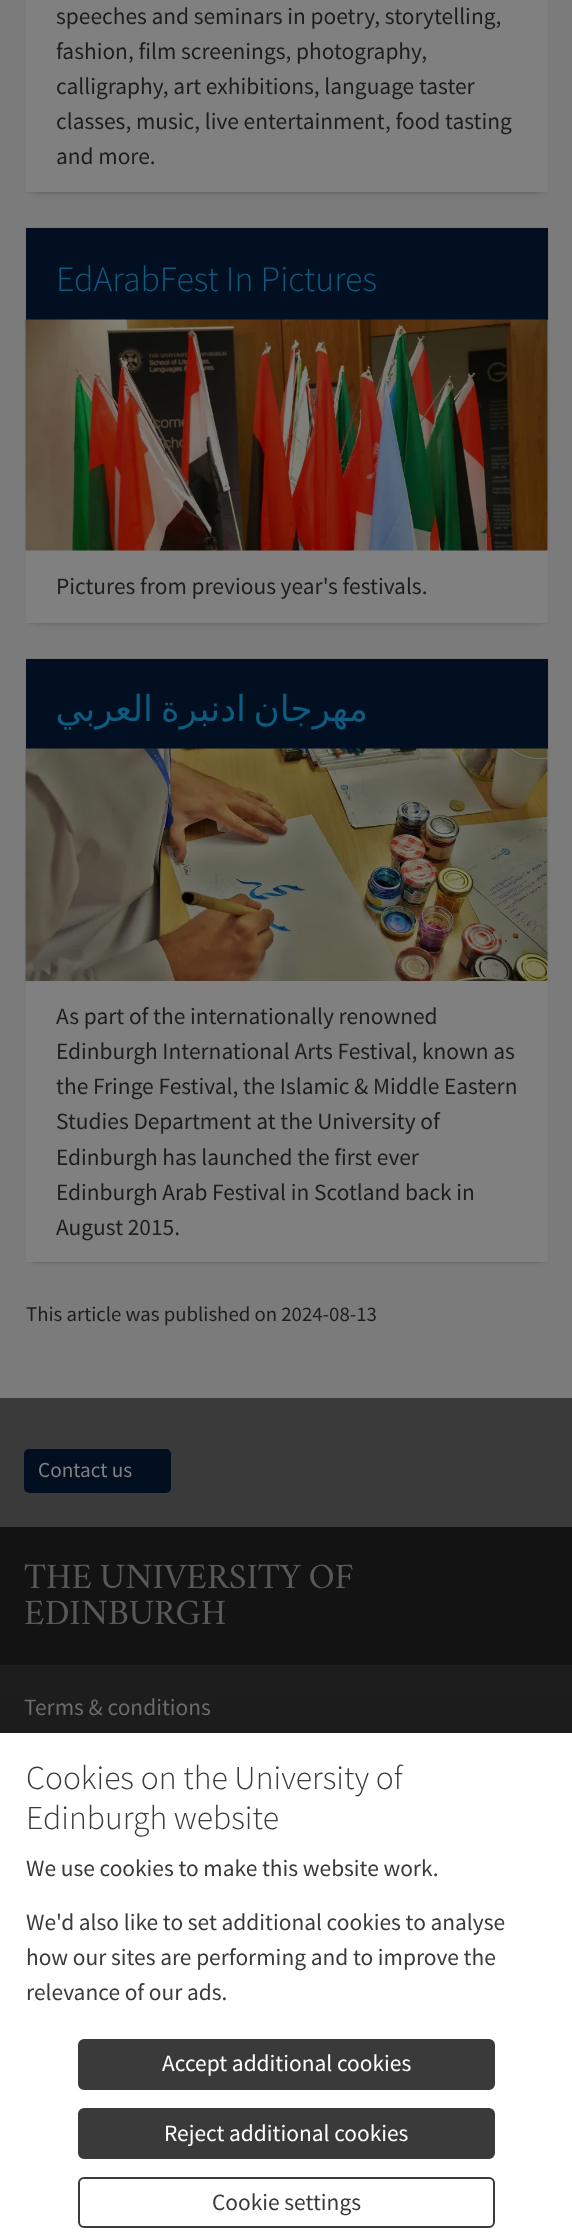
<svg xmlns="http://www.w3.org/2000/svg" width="572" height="2238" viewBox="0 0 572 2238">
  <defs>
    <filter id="blur1" x="-50%" y="-200%" width="200%" height="500%"><feGaussianBlur stdDeviation="1"/></filter>
    <filter id="blur2" x="-50%" y="-200%" width="200%" height="500%"><feGaussianBlur stdDeviation="4.5"/></filter>
    <linearGradient id="g1" gradientUnits="userSpaceOnUse" x1="286" y1="1665" x2="287" y2="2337"><stop offset="0" stop-color="#1d1d1d"/><stop offset="1" stop-color="#131313"/></linearGradient>
  </defs>
  <rect width="100%" height="100%" fill="#7b7b7b"/>
  <rect x="26" y="-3" width="522" height="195" fill="#000000" fill-opacity="0.1" filter="url(#blur1)"/>
  <rect x="33" y="-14" width="507" height="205" fill="#000000" fill-opacity="0.3" filter="url(#blur2)"/>
  <rect x="26" y="0" width="522" height="192" fill="#808080"/>
  <text x="56" y="24" font-family="Source Sans Pro" font-size="23.4" fill="#1d1d1d">speeches and seminars in poetry, storytelling,</text>
  <text x="56" y="59" font-family="Source Sans Pro" font-size="23.4" fill="#1d1d1d">fashion, film screenings, photography,</text>
  <text x="56" y="94" font-family="Source Sans Pro" font-size="23.4" fill="#1d1d1d">calligraphy, art exhibitions, language taster</text>
  <text x="56" y="129" font-family="Source Sans Pro" font-size="23.4" fill="#1d1d1d">classes, music, live entertainment, food tasting</text>
  <text x="56" y="164" font-family="Source Sans Pro" font-size="23.4" fill="#1d1d1d">and more.</text>
  <rect x="26" y="228" width="522" height="395" fill="#000000" fill-opacity="0.1" filter="url(#blur1)"/>
  <rect x="33" y="242" width="507" height="379" fill="#000000" fill-opacity="0.3" filter="url(#blur2)"/>
  <rect x="26" y="320" width="522" height="303" fill="#808080"/>
  <rect x="26" y="228" width="522" height="92" fill="#020f21"/>
  <text x="56" y="291" font-family="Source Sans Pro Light" font-size="35.75" font-weight="300" fill="#0d5b7f">EdArabFest In Pictures</text>
  <image x="25" y="319" width="523" height="232" href="img1.png"/>
  <text x="56" y="594" font-family="Source Sans Pro" font-size="23.4" fill="#1d1d1d">Pictures from previous year's festivals.</text>
  <rect x="26" y="659" width="522" height="603" fill="#000000" fill-opacity="0.1" filter="url(#blur1)"/>
  <rect x="33" y="672" width="507" height="588" fill="#000000" fill-opacity="0.3" filter="url(#blur2)"/>
  <rect x="26" y="749" width="522" height="513" fill="#808080"/>
  <rect x="26" y="659" width="522" height="90" fill="#020f21"/>
  <text x="153" y="721" font-family="DejaVu Sans" font-size="35.75" direction="rtl" fill="#0d5b7f">العربي</text>
  <text x="368" y="721" word-spacing="-4" font-family="DejaVu Sans" font-size="35.75" direction="rtl" fill="#0d5b7f">مهرجان ادنبرة</text>
  <image x="25" y="748" width="523" height="233" href="img2.png"/>
  <text x="56" y="1024" font-family="Source Sans Pro" font-size="23.4" fill="#1d1d1d">As part of the internationally renowned</text>
  <text x="56" y="1059" font-family="Source Sans Pro" font-size="23.4" fill="#1d1d1d">Edinburgh International Arts Festival, known as</text>
  <text x="56" y="1094" font-family="Source Sans Pro" font-size="23.4" fill="#1d1d1d">the Fringe Festival, the Islamic &amp; Middle Eastern</text>
  <text x="56" y="1129" font-family="Source Sans Pro" font-size="23.4" fill="#1d1d1d">Studies Department at the University of</text>
  <text x="56" y="1165" font-family="Source Sans Pro" font-size="23.4" fill="#1d1d1d">Edinburgh has launched the first ever</text>
  <text x="56" y="1200" font-family="Source Sans Pro" font-size="23.4" fill="#1d1d1d">Edinburgh Arab Festival in Scotland back in</text>
  <text x="56" y="1235" font-family="Source Sans Pro" font-size="23.4" fill="#1d1d1d">August 2015.</text>
  <text x="26" y="1321" font-family="Source Sans Pro" font-size="20.8" fill="#1d1d1d">This article was published on 2024-08-13</text>
  <rect x="0" y="1398" width="572" height="129" fill="#3a3a3a"/>
  <rect x="25" y="1450" width="145" height="42" rx="4" fill="#020f21" stroke="#020f21" stroke-width="2"/>
  <text x="38" y="1477" font-family="Source Sans Pro" font-size="21.25" fill="#808080">Contact us</text>
  <rect x="0" y="1527" width="572" height="138" fill="#131313"/>
  <text x="24" y="1588" font-family="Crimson" font-size="36" fill="#585858">THE UNIVERSITY OF</text>
  <text x="24" y="1624" font-family="Crimson" font-size="36" fill="#585858">EDINBURGH</text>
  <rect x="0" y="1665" width="572" height="68" fill="url(#g1)"/>
  <text x="24" y="1715" font-family="Source Sans Pro" font-size="23.4" fill="#6a6a6a">Terms &amp; conditions</text>
  <rect x="0" y="1733" width="572" height="505" fill="#ffffff"/>
  <text x="26" y="1789" font-family="Source Sans Pro Light" font-size="33.6" font-weight="300" fill="#3a3a3a">Cookies on the University of</text>
  <text x="26" y="1829" font-family="Source Sans Pro Light" font-size="33.6" font-weight="300" fill="#3a3a3a">Edinburgh website</text>
  <text x="26" y="1876" font-family="Source Sans Pro" font-size="23.4" fill="#3a3a3a">We use cookies to make this website work.</text>
  <text x="26" y="1930" font-family="Source Sans Pro" font-size="23.4" fill="#3a3a3a">We'd also like to set additional cookies to analyse</text>
  <text x="26" y="1965" font-family="Source Sans Pro" font-size="23.4" fill="#3a3a3a">how our sites are performing and to improve the</text>
  <text x="26" y="2000" font-family="Source Sans Pro" font-size="23.4" fill="#3a3a3a">relevance of our ads.</text>
  <rect x="79" y="2040" width="415" height="49" rx="5" fill="#3a3a3a" stroke="#3a3a3a" stroke-width="2"/>
  <text x="162" y="2071" font-family="Source Sans Pro" font-size="23.4" fill="#ffffff">Accept additional cookies</text>
  <rect x="79" y="2109" width="415" height="49" rx="5" fill="#3a3a3a" stroke="#3a3a3a" stroke-width="2"/>
  <text x="164" y="2141" font-family="Source Sans Pro" font-size="23.4" fill="#ffffff">Reject additional cookies</text>
  <rect x="79" y="2178" width="415" height="49" rx="5" fill="none" stroke="#3a3a3a" stroke-width="2"/>
  <text x="212" y="2210" font-family="Source Sans Pro" font-size="23.4" fill="#3a3a3a">Cookie settings</text>
</svg>
